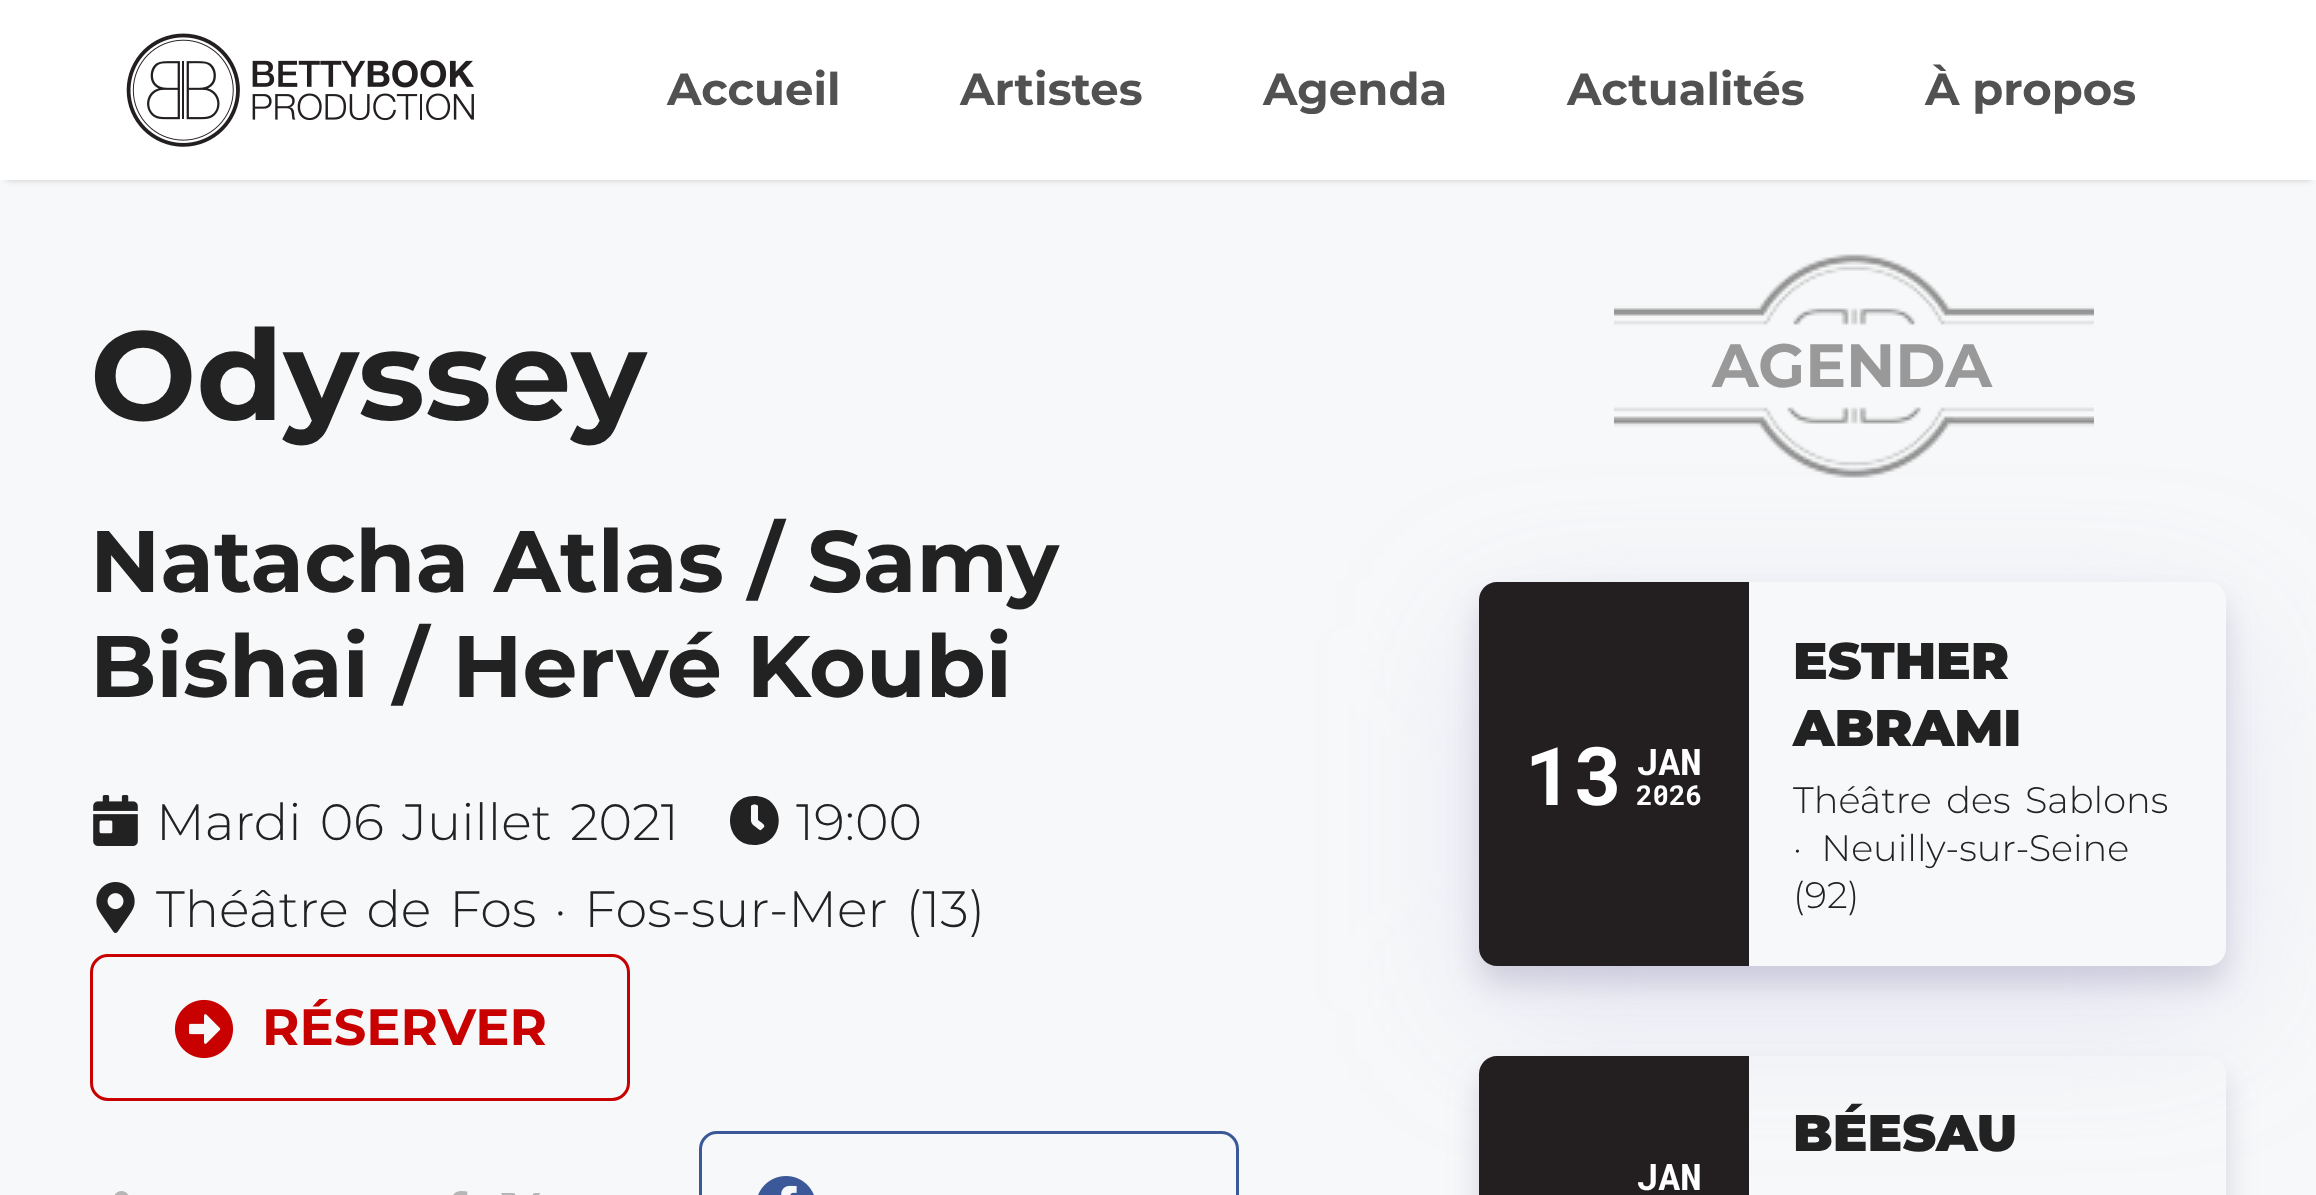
<svg xmlns="http://www.w3.org/2000/svg" width="2316" height="1195" viewBox="0 0 2316 1195">
  <defs>
    <filter id="blur1" x="-50%" y="-200%" width="200%" height="500%"><feGaussianBlur stdDeviation="3"/></filter>
    <clipPath id="clip1"><path d="M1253 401H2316V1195H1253ZM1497 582H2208C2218 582 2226 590 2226 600V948C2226 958 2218 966 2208 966H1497C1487 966 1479 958 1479 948V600C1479 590 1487 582 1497 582Z" clip-rule="evenodd"/></clipPath>
    <filter id="blur2" x="-50%" y="-200%" width="200%" height="500%"><feGaussianBlur stdDeviation="75"/></filter>
    <clipPath id="clip2"><path d="M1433 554H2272V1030H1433ZM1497 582H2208C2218 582 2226 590 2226 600V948C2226 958 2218 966 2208 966H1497C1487 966 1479 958 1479 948V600C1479 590 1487 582 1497 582Z" clip-rule="evenodd"/></clipPath>
    <filter id="blur3" x="-50%" y="-200%" width="200%" height="500%"><feGaussianBlur stdDeviation="15"/></filter>
    <clipPath id="clip3"><path d="M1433 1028H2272V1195H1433ZM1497 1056H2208C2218 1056 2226 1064 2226 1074V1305C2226 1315 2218 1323 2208 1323H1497C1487 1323 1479 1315 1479 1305V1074C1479 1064 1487 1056 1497 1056Z" clip-rule="evenodd"/></clipPath>
  </defs>
  <rect width="100%" height="100%" fill="#f7f8f9"/>
  <rect x="6" y="12" width="2304" height="168" fill="#000000" fill-opacity="0.2" filter="url(#blur1)"/>
  <rect x="0" y="0" width="2316" height="180" fill="#ffffff"/>
  <image x="126" y="33" width="348" height="114" href="img1.png"/>
  <text x="667" y="105" font-family="Montserrat" font-size="45" font-weight="bold" fill="#515151">Accueil</text>
  <text x="960" y="105" font-family="Montserrat" font-size="45" font-weight="bold" fill="#515151">Artistes</text>
  <text x="1263" y="105" font-family="Montserrat" font-size="45" font-weight="bold" fill="#515151">Agenda</text>
  <text x="1567" y="105" font-family="Montserrat" font-size="45" font-weight="bold" fill="#515151">Actualités</text>
  <text x="1925" y="105" font-family="Montserrat" font-size="45" font-weight="bold" fill="#515151">À propos</text>
  <text x="90" y="420" font-family="Montserrat" font-size="126" font-weight="bold" fill="#222222">Odyssey</text>
  <text x="90" y="592" font-family="Montserrat" font-size="87" font-weight="bold" fill="#222222">Natacha Atlas / Samy</text>
  <text x="90" y="697" font-family="Montserrat" font-size="87" font-weight="bold" fill="#222222">Bishai / Hervé Koubi</text>
  <image x="93" y="795" width="45" height="51" href="img2.png"/>
  <text x="156" y="840" word-spacing="5" font-family="Montserrat" font-size="51" font-weight="300" fill="#222222">Mardi 06 Juillet 2021</text>
  <path d="M754 796C722 796 722 845 754 845C787 845 787 796 754 796ZM764 827C760 831 761 831 757 828C750 823 751 823 751 814V806C752 804 757 804 758 806V820C759 821 766 825 764 827Z" fill="#222222"/>
  <text x="796" y="840" font-family="Montserrat" font-size="51" font-weight="300" fill="#222222">19:00</text>
  <image x="96" y="882" width="39" height="51" href="img3.png"/>
  <text x="156" y="927" word-spacing="4.75" font-family="Montserrat" font-size="51" font-weight="300" fill="#222222">Théâtre de Fos · Fos-sur-Mer (13)</text>
  <rect x="91.5" y="955.5" width="537" height="144" rx="16.5" fill="none" stroke="#c80000" stroke-width="3"/>
  <image x="174" y="999" width="60" height="60" href="img4.png"/>
  <text x="262" y="1045" font-family="Montserrat" font-size="51" font-weight="bold" fill="#c80000">RÉSERVER</text>
  <image x="114" y="1191" width="15" height="4" href="img5.png"/>
  <image x="453" y="1191" width="15" height="4" href="img6.png"/>
  <image x="501" y="1193" width="40" height="2" href="img7.png"/>
  <rect x="700.5" y="1132.5" width="537" height="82" rx="16.5" fill="none" stroke="#3b5998" stroke-width="3"/>
  <image x="758" y="1176" width="56" height="19" href="img8.png"/>
  <image x="1614" y="254" width="480" height="224" href="img9.png"/>
  <text x="1712" y="387" font-family="Montserrat" font-size="61" font-weight="bold" fill="#999999">AGENDA</text>
  <g clip-path="url(#clip1)">
    <rect x="1479" y="627" width="747" height="384" rx="18" fill="#b6b6e0" fill-opacity="0.3" filter="url(#blur2)"/>
  </g>
  <g clip-path="url(#clip2)">
    <rect x="1479" y="600" width="747" height="384" rx="18" fill="#9590b3" fill-opacity="0.35" filter="url(#blur3)"/>
  </g>
  <path d="M1497 582H1749V966H1497C1487 966 1479 958 1479 948V600C1479 590 1487 582 1497 582Z" fill="#231f20"/>
  <text x="1525" y="805" font-family="Roboto Mono" font-size="81" font-weight="bold" fill="#ffffff">13</text>
  <text x="1636" y="775" font-family="Roboto Mono" font-size="36.75" font-weight="bold" fill="#ffffff">JAN</text>
  <text x="1636" y="805" font-family="Roboto Mono" font-size="27.5" font-weight="bold" fill="#ffffff">2026</text>
  <text x="1793" y="679" font-family="Montserrat" font-size="51.5" font-weight="900" fill="#222222">ESTHER</text>
  <text x="1793" y="746" font-family="Montserrat" font-size="51.5" font-weight="900" fill="#222222">ABRAMI</text>
  <text x="1793" y="813" word-spacing="5" font-family="Montserrat" font-size="36.75" font-weight="300" fill="#222222">Théâtre des Sablons</text>
  <text x="1793" y="861" word-spacing="10" font-family="Montserrat" font-size="36.75" font-weight="300" fill="#222222">· Neuilly-sur-Seine</text>
  <text x="1793" y="908" font-family="Montserrat" font-size="36.75" font-weight="300" fill="#222222">(92)</text>
  <g clip-path="url(#clip3)">
    <rect x="1479" y="1074" width="747" height="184" rx="18" fill="#9590b3" fill-opacity="0.35" filter="url(#blur3)"/>
  </g>
  <text x="1793" y="1151" font-family="Montserrat" font-size="51.5" font-weight="900" fill="#222222">BÉESAU</text>
  <path d="M1497 1056H1749V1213H1497C1487 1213 1479 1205 1479 1195V1074C1479 1064 1487 1056 1497 1056Z" fill="#231f20"/>
  <text x="1636" y="1190" font-family="Roboto Mono" font-size="36.75" font-weight="bold" fill="#ffffff">JAN</text>
</svg>
